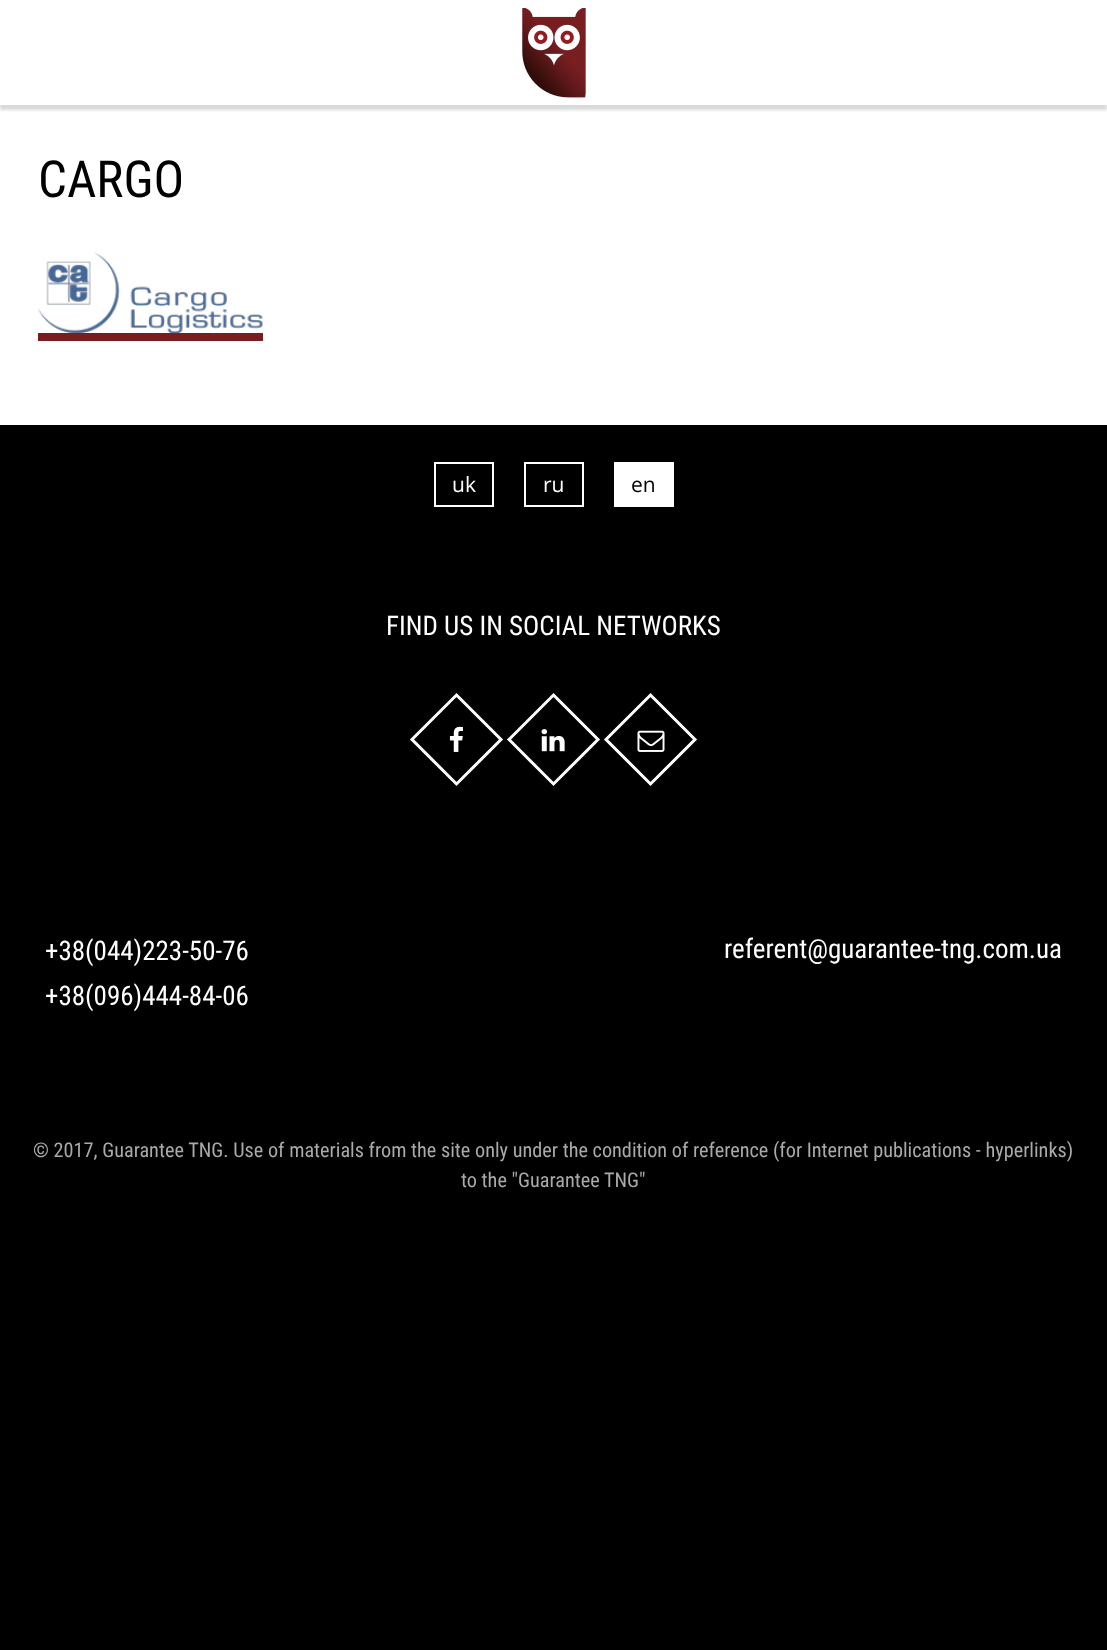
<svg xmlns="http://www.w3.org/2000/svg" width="1107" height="1650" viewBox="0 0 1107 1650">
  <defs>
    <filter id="blur1" x="-50%" y="-200%" width="200%" height="500%"><feGaussianBlur stdDeviation="1.5"/></filter>
  </defs>
  <rect width="100%" height="100%" fill="#000000"/>
  <rect x="0" y="105" width="1107" height="320" fill="#ffffff"/>
  <rect x="0" y="5" width="1107" height="105" fill="#000000" fill-opacity="0.15" filter="url(#blur1)"/>
  <rect x="0" y="0" width="1107" height="105" fill="#ffffff"/>
  <image x="522" y="8" width="64" height="90" href="img1.png"/>
  <text x="38" y="197" font-family="Roboto Condensed" font-size="51" fill="#000000">CARGO</text>
  <image x="37" y="252" width="226" height="81" href="img2.png"/>
  <rect x="38" y="333" width="225" height="8" fill="#781e21"/>
  <rect x="435" y="463" width="58" height="43" fill="none" stroke="#ffffff" stroke-width="2"/>
  <text x="452" y="492" font-family="Open Sans" font-size="21" fill="#ffffff">uk</text>
  <rect x="525" y="463" width="58" height="43" fill="none" stroke="#ffffff" stroke-width="2"/>
  <text x="543" y="492" font-family="Open Sans" font-size="21" fill="#ffffff">ru</text>
  <rect x="614" y="462" width="60" height="45" fill="#ffffff"/>
  <text x="631" y="492" font-family="Open Sans" font-size="21" fill="#000000">en</text>
  <text x="386" y="635" font-family="Roboto Condensed" font-size="27" fill="#ffffff">FIND US IN SOCIAL NETWORKS</text>
  <image x="449" y="726" width="14" height="26" href="img3.png"/>
  <path d="M456.5 695L501 739.5L456.5 784L412 739.5Z" fill="none" stroke="#ffffff" stroke-width="3"/>
  <image x="541" y="729" width="24" height="23" href="img4.png"/>
  <path d="M553.5 695L598 739.5L553.5 784L509 739.5Z" fill="none" stroke="#ffffff" stroke-width="3"/>
  <image x="637" y="730" width="28" height="22" href="img5.png"/>
  <path d="M650.5 695L695 739.5L650.5 784L606 739.5Z" fill="none" stroke="#ffffff" stroke-width="3"/>
  <text x="45" y="960" font-family="Roboto Condensed" font-size="27" fill="#ffffff">+38(044)223-50-76</text>
  <text x="45" y="1005" font-family="Roboto Condensed" font-size="27" fill="#ffffff">+38(096)444-84-06</text>
  <text x="724" y="958" font-family="Roboto Condensed" font-size="27" fill="#ffffff">referent@guarantee-tng.com.ua</text>
  <text x="33" y="1157" font-family="Roboto Condensed" font-size="20.25" fill="#aaaaaa">© 2017, Guarantee TNG. Use of materials from the site only under the condition of reference (for Internet publications - hyperlinks)</text>
  <text x="461" y="1187" font-family="Roboto Condensed" font-size="20.25" fill="#aaaaaa">to the "Guarantee TNG"</text>
</svg>
